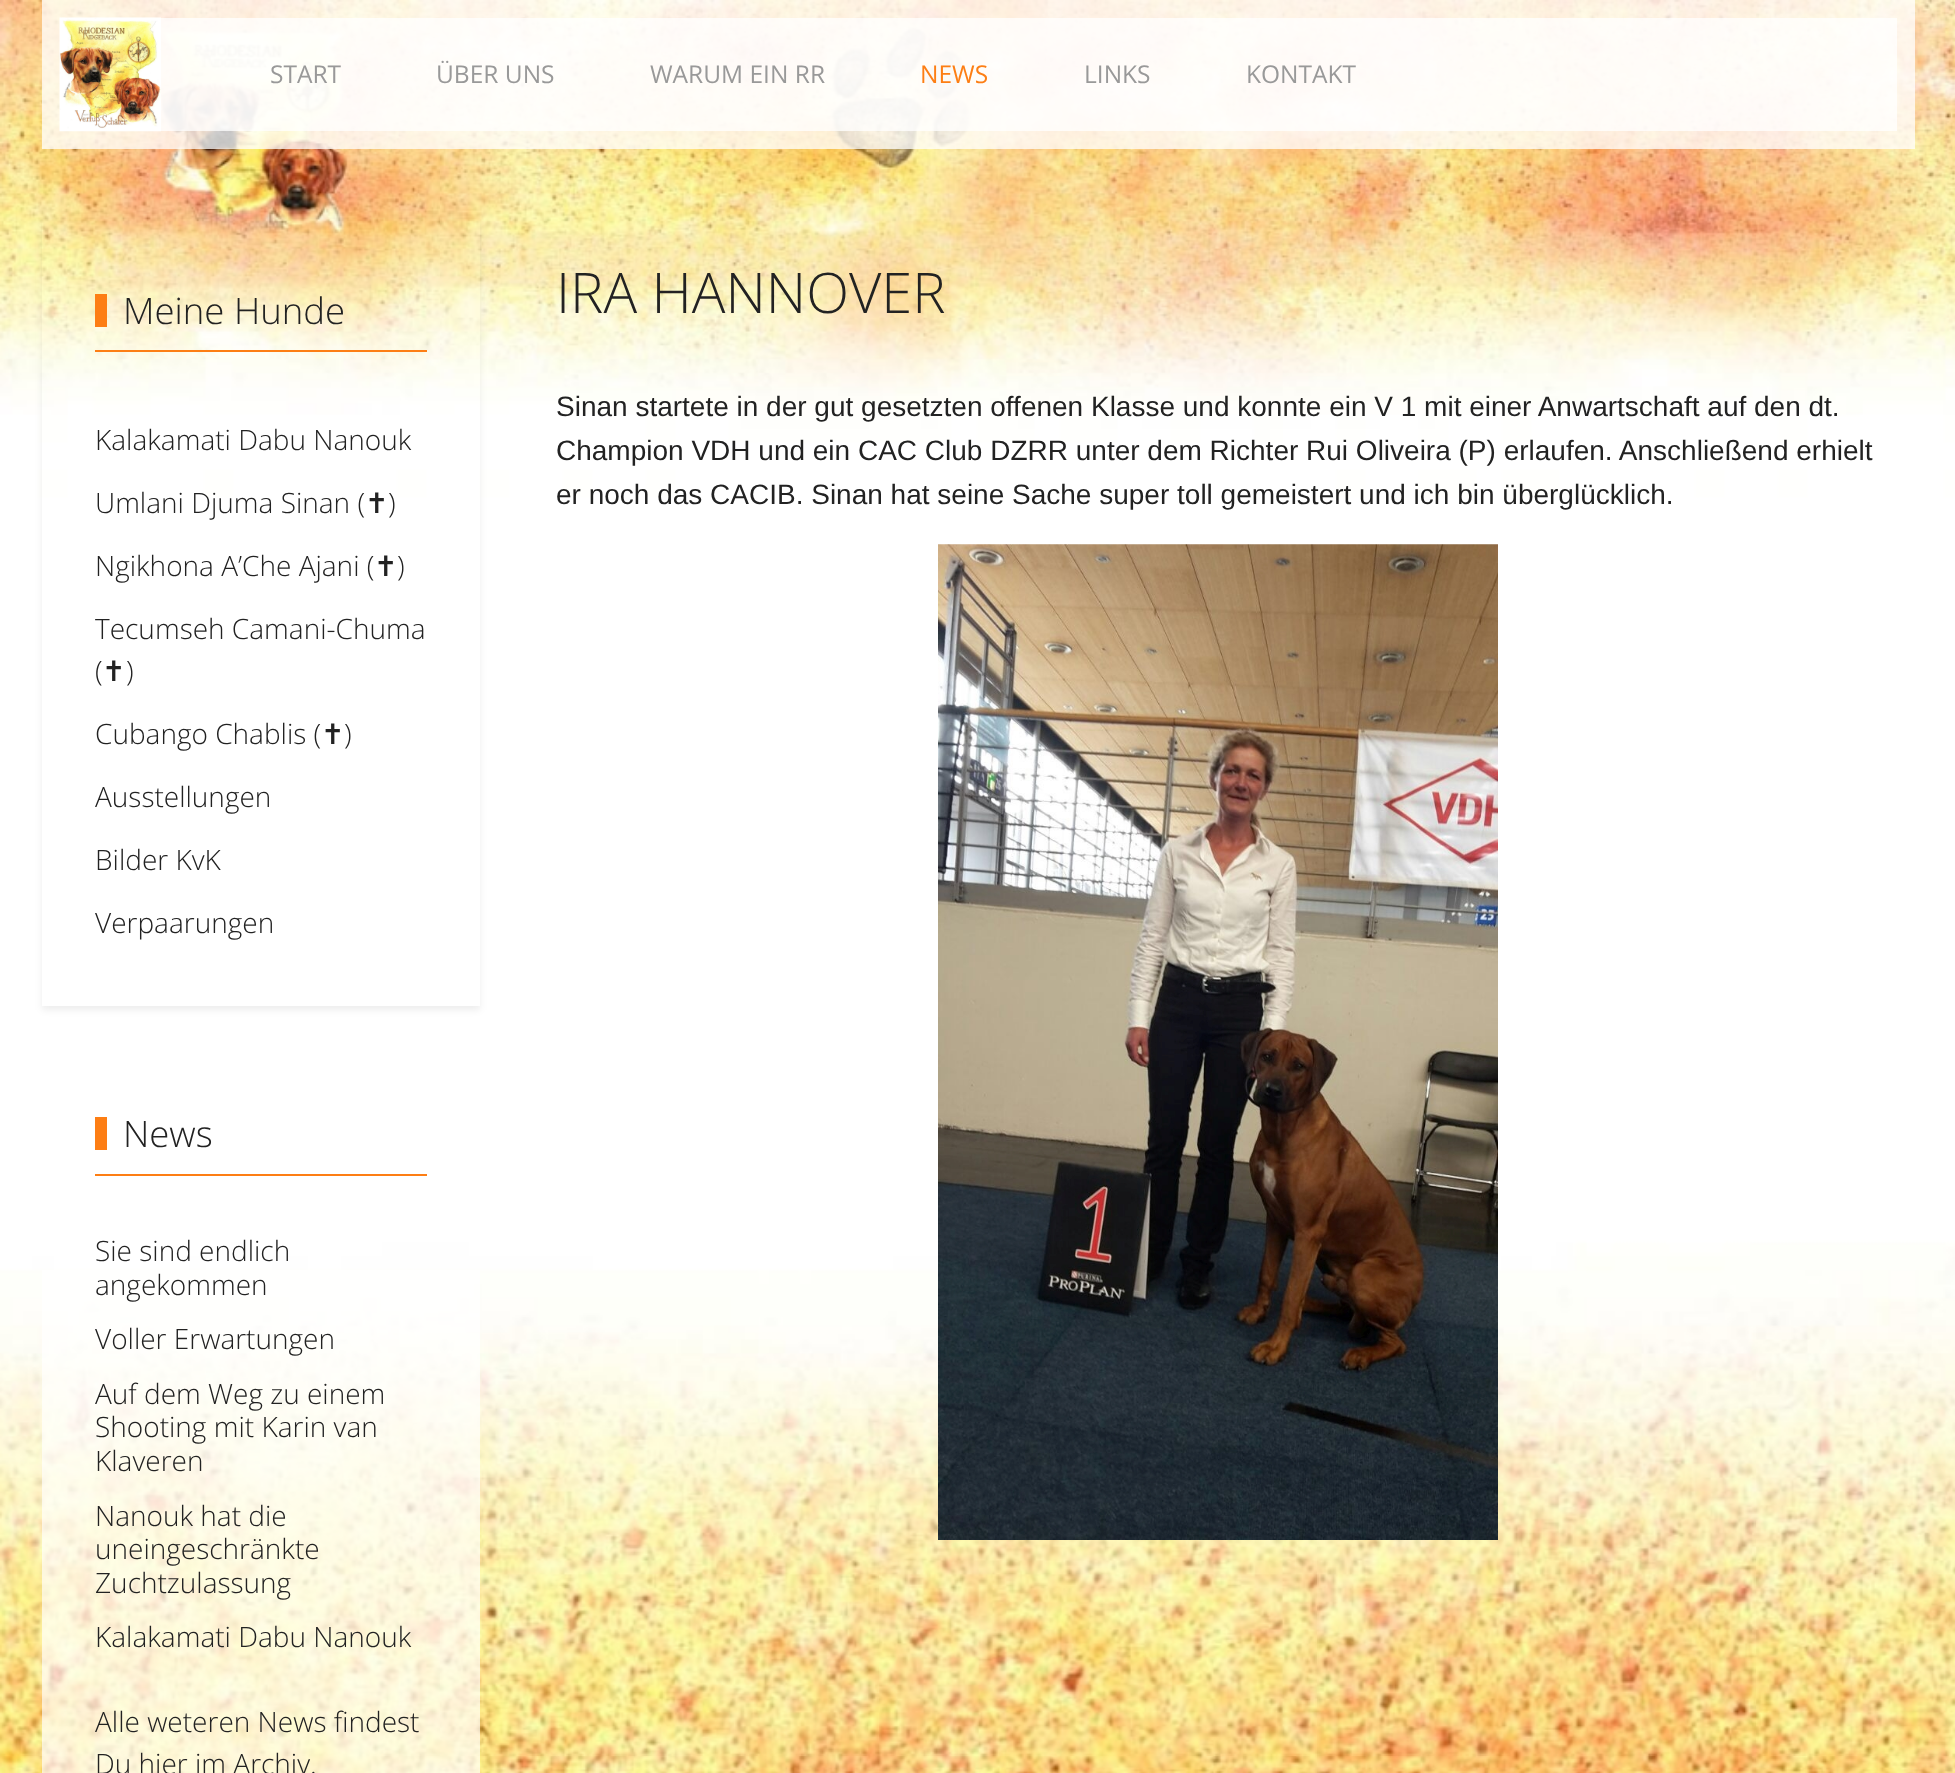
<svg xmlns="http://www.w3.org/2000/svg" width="1955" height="1773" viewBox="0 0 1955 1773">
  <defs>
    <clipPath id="clip1"><path d="M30 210H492V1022H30ZM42 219H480V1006H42Z" clip-rule="evenodd"/></clipPath>
    <filter id="blur1" x="-50%" y="-200%" width="200%" height="500%"><feGaussianBlur stdDeviation="3.5"/></filter>
  </defs>
  <rect width="100%" height="100%" fill="#ffffff"/>
  <image x="0" y="0" width="1955" height="1773" href="img1.png"/>
  <rect x="42" y="0" width="1873" height="149" fill="#ffffff" fill-opacity="0.76"/>
  <rect x="161" y="18" width="1736" height="113" fill="#ffffff" fill-opacity="0.76"/>
  <image x="59" y="17" width="102" height="115" href="img2.png"/>
  <text x="270" y="83" font-family="Open Sans" font-size="24.5" fill="#999999">START</text>
  <text x="436" y="83" font-family="Open Sans" font-size="24.5" fill="#999999">ÜBER UNS</text>
  <text x="650" y="83" font-family="Open Sans" font-size="24.5" fill="#999999">WARUM EIN RR</text>
  <text x="920" y="83" font-family="Open Sans" font-size="24.5" fill="#fd7e14">NEWS</text>
  <text x="1084" y="83" font-family="Open Sans" font-size="24.5" fill="#999999">LINKS</text>
  <text x="1246" y="83" font-family="Open Sans" font-size="24.5" fill="#999999">KONTAKT</text>
  <g clip-path="url(#clip1)">
    <rect x="42" y="222" width="438" height="788" fill="#000000" fill-opacity="0.07" filter="url(#blur1)"/>
  </g>
  <rect x="95" y="350" width="332" height="2" fill="#fd7e14"/>
  <rect x="95" y="294" width="12" height="33" fill="#fd7e14"/>
  <text x="123" y="324" font-family="Open Sans" font-size="36.5" font-weight="300" fill="#222222">Meine Hunde</text>
  <text x="95" y="450" font-family="Open Sans" font-size="28" font-weight="300" fill="#222222">Kalakamati Dabu Nanouk</text>
  <text x="95" y="513" font-family="Open Sans" font-size="28" font-weight="300" fill="#222222">Umlani Djuma Sinan (</text>
  <text x="365" y="513" font-family="DejaVu Sans" font-size="28" fill="#222222">✝</text>
  <text x="388" y="513" font-family="Open Sans" font-size="28" font-weight="300" fill="#222222">)</text>
  <text x="95" y="576" font-family="Open Sans" font-size="28" font-weight="300" fill="#222222">Ngikhona A’Che Ajani (</text>
  <text x="374" y="576" font-family="DejaVu Sans" font-size="28" fill="#222222">✝</text>
  <text x="397" y="576" font-family="Open Sans" font-size="28" font-weight="300" fill="#222222">)</text>
  <text x="95" y="639" font-family="Open Sans" font-size="28" font-weight="300" fill="#222222">Tecumseh Camani-Chuma</text>
  <text x="95" y="681" font-family="Open Sans" font-size="28" font-weight="300" fill="#222222">(</text>
  <text x="102" y="681" font-family="DejaVu Sans" font-size="28" fill="#222222">✝</text>
  <text x="126" y="681" font-family="Open Sans" font-size="28" font-weight="300" fill="#222222">)</text>
  <text x="95" y="744" font-family="Open Sans" font-size="28" font-weight="300" fill="#222222">Cubango Chablis (</text>
  <text x="321" y="744" font-family="DejaVu Sans" font-size="28" fill="#222222">✝</text>
  <text x="344" y="744" font-family="Open Sans" font-size="28" font-weight="300" fill="#222222">)</text>
  <text x="95" y="807" font-family="Open Sans" font-size="28" font-weight="300" fill="#222222">Ausstellungen</text>
  <text x="95" y="870" font-family="Open Sans" font-size="28" font-weight="300" fill="#222222">Bilder KvK</text>
  <text x="95" y="933" font-family="Open Sans" font-size="28" font-weight="300" fill="#222222">Verpaarungen</text>
  <rect x="42" y="1270" width="438" height="503" fill="#ffffff" fill-opacity="0.68"/>
  <rect x="95" y="1174" width="332" height="2" fill="#fd7e14"/>
  <rect x="95" y="1117" width="12" height="33" fill="#fd7e14"/>
  <text x="123" y="1147" font-family="Open Sans" font-size="36.5" font-weight="300" fill="#222222">News</text>
  <text x="95" y="1261" font-family="Open Sans" font-size="28" font-weight="300" fill="#222222">Sie sind endlich</text>
  <text x="95" y="1295" font-family="Open Sans" font-size="28" font-weight="300" fill="#222222">angekommen</text>
  <text x="95" y="1349" font-family="Open Sans" font-size="28" font-weight="300" fill="#222222">Voller Erwartungen</text>
  <text x="95" y="1404" font-family="Open Sans" font-size="28" font-weight="300" fill="#222222">Auf dem Weg zu einem</text>
  <text x="95" y="1437" font-family="Open Sans" font-size="28" font-weight="300" fill="#222222">Shooting mit Karin van</text>
  <text x="95" y="1471" font-family="Open Sans" font-size="28" font-weight="300" fill="#222222">Klaveren</text>
  <text x="95" y="1526" font-family="Open Sans" font-size="28" font-weight="300" fill="#222222">Nanouk hat die</text>
  <text x="95" y="1559" font-family="Open Sans" font-size="28" font-weight="300" fill="#222222">uneingeschränkte</text>
  <text x="95" y="1593" font-family="Open Sans" font-size="28" font-weight="300" fill="#222222">Zuchtzulassung</text>
  <text x="95" y="1647" font-family="Open Sans" font-size="28" font-weight="300" fill="#222222">Kalakamati Dabu Nanouk</text>
  <text x="95" y="1732" font-family="Open Sans" font-size="28" font-weight="300" fill="#222222">Alle weteren News findest</text>
  <text x="95" y="1774" font-family="Open Sans" font-size="28" font-weight="300" fill="#222222">Du hier im Archiv.</text>
  <text x="556" y="313" font-family="Open Sans" font-size="56" font-weight="300" fill="#222222">IRA HANNOVER</text>
  <text x="556" y="416" font-family="Liberation Sans" font-size="28" fill="#222222">Sinan startete in der gut gesetzten offenen Klasse und konnte ein V 1 mit einer Anwartschaft auf den dt.</text>
  <text x="556" y="460" font-family="Liberation Sans" font-size="28" fill="#222222">Champion VDH und ein CAC Club DZRR unter dem Richter Rui Oliveira (P) erlaufen. Anschließend erhielt</text>
  <text x="556" y="504" font-family="Liberation Sans" font-size="28" fill="#222222">er noch das CACIB. Sinan hat seine Sache super toll gemeistert und ich bin überglücklich.</text>
  <image x="938" y="544" width="560" height="996" href="img3.png"/>
</svg>
